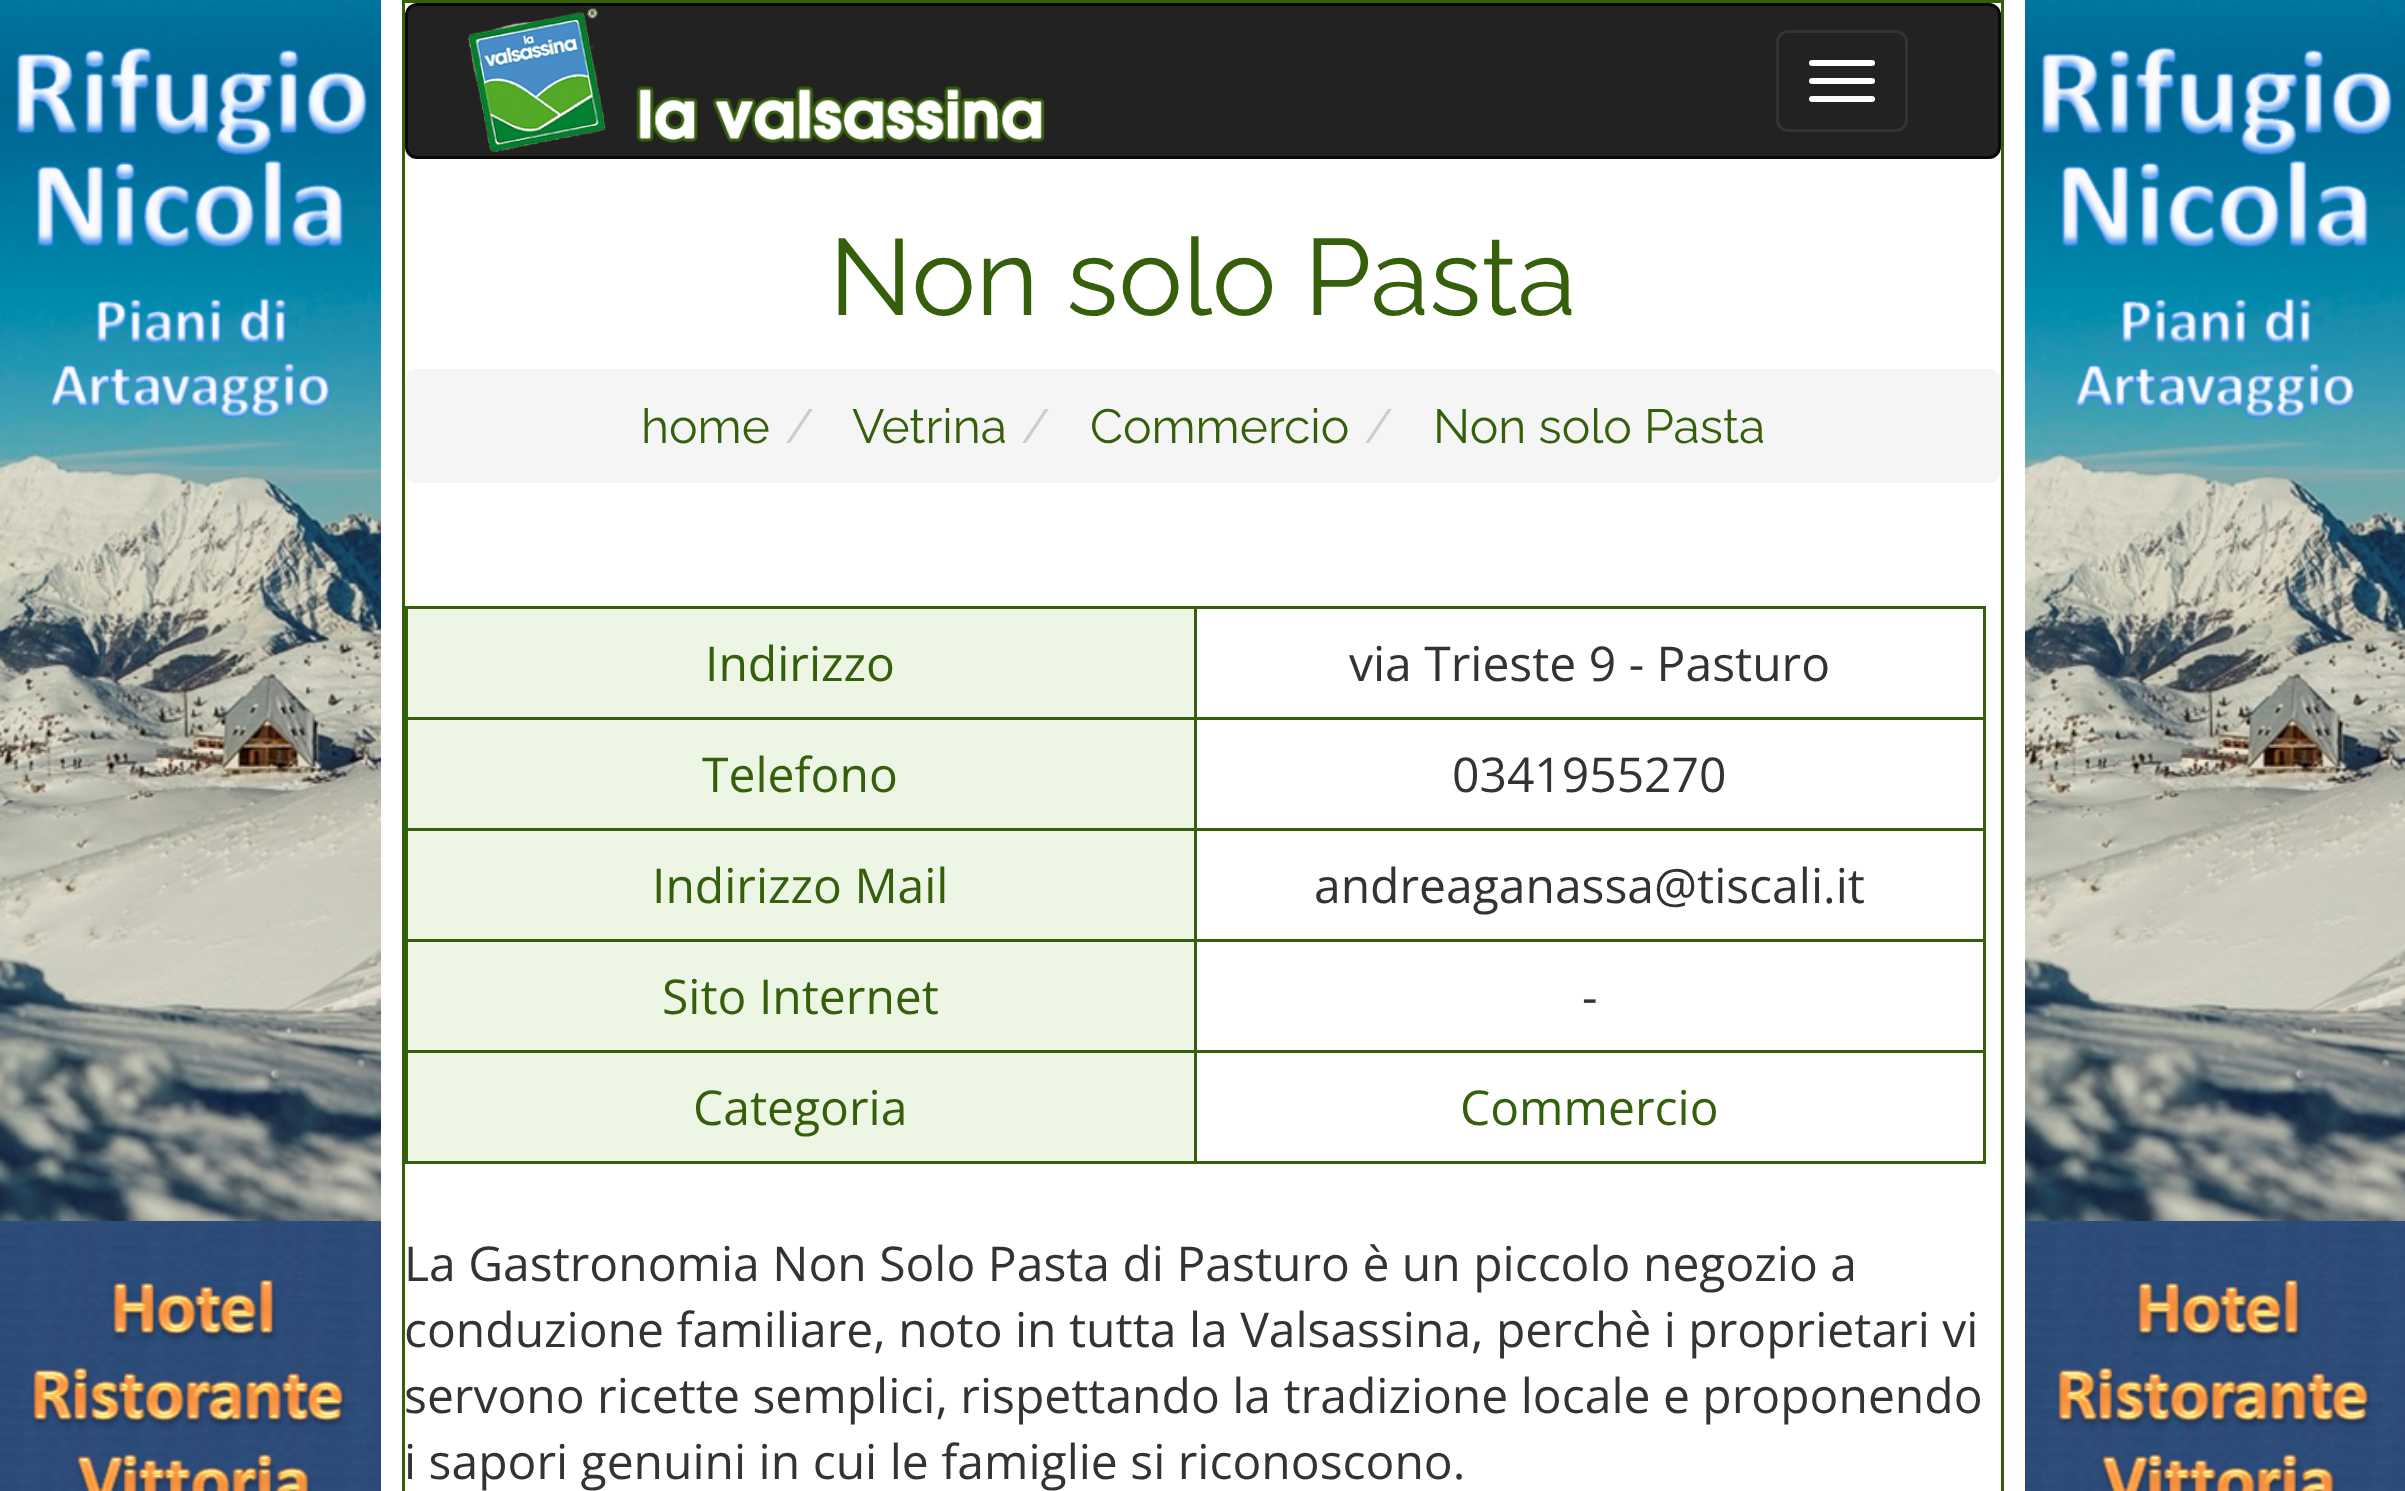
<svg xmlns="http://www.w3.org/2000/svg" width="2405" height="1491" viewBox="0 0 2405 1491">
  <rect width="100%" height="100%" fill="#ffffff"/>
  <image x="0" y="0" width="381" height="1221" href="img1.png"/>
  <image x="0" y="1221" width="381" height="270" href="img2.png"/>
  <rect x="403.5" y="1.5" width="1599" height="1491" fill="none" stroke="#365f0b" stroke-width="3"/>
  <rect x="406.5" y="4.5" width="1593" height="153" rx="10.5" fill="#222222" stroke="#080808" stroke-width="3"/>
  <image x="468" y="6" width="577" height="146" href="img3.png"/>
  <rect x="1777.5" y="31.5" width="129" height="99" rx="10.5" fill="none" stroke="#333333" stroke-width="3"/>
  <rect x="1809" y="60" width="66" height="6" rx="3" fill="#ffffff"/>
  <rect x="1809" y="78" width="66" height="6" rx="3" fill="#ffffff"/>
  <rect x="1809" y="96" width="66" height="6" rx="3" fill="#ffffff"/>
  <text x="829" y="315" font-family="Raleway" font-size="108" font-weight="100" fill="#365f0b">Non solo Pasta</text>
  <rect x="405" y="369" width="1596" height="114" rx="12" fill="#f5f5f5"/>
  <text x="641" y="443" font-family="Raleway" font-size="48" font-weight="100" fill="#365f0b">home</text>
  <text x="785" y="443" font-family="Raleway" font-size="48" font-weight="100" fill="#cccccc">/</text>
  <text x="852" y="443" font-family="Raleway" font-size="48" font-weight="100" fill="#365f0b">Vetrina</text>
  <text x="1021" y="443" font-family="Raleway" font-size="48" font-weight="100" fill="#cccccc">/</text>
  <text x="1090" y="443" font-family="Raleway" font-size="48" font-weight="100" fill="#365f0b">Commercio</text>
  <text x="1364" y="443" font-family="Raleway" font-size="48" font-weight="100" fill="#cccccc">/</text>
  <text x="1433" y="443" font-family="Raleway" font-size="48" font-weight="100" fill="#365f0b">Non solo Pasta</text>
  <rect x="408" y="609" width="786" height="108" fill="#edf6e4"/>
  <rect x="1194" y="606" width="792" height="3" fill="#365f0b"/>
  <rect x="1194" y="717" width="792" height="3" fill="#365f0b"/>
  <rect x="1194" y="828" width="792" height="3" fill="#365f0b"/>
  <rect x="1194" y="939" width="792" height="3" fill="#365f0b"/>
  <rect x="1194" y="1050" width="792" height="3" fill="#365f0b"/>
  <rect x="1983" y="1050" width="3" height="114" fill="#365f0b"/>
  <rect x="1194" y="1161" width="792" height="3" fill="#365f0b"/>
  <rect x="1194" y="1050" width="3" height="114" fill="#365f0b"/>
  <rect x="405" y="1050" width="792" height="3" fill="#365f0b"/>
  <rect x="1194" y="939" width="3" height="114" fill="#365f0b"/>
  <rect x="405" y="939" width="792" height="3" fill="#365f0b"/>
  <rect x="1194" y="828" width="3" height="114" fill="#365f0b"/>
  <rect x="405" y="828" width="792" height="3" fill="#365f0b"/>
  <rect x="1194" y="717" width="3" height="114" fill="#365f0b"/>
  <rect x="405" y="717" width="792" height="3" fill="#365f0b"/>
  <rect x="1194" y="606" width="3" height="114" fill="#365f0b"/>
  <rect x="405" y="606" width="792" height="3" fill="#365f0b"/>
  <rect x="405" y="1161" width="792" height="3" fill="#365f0b"/>
  <rect x="405" y="1050" width="3" height="114" fill="#365f0b"/>
  <rect x="405" y="939" width="3" height="114" fill="#365f0b"/>
  <rect x="405" y="828" width="3" height="114" fill="#365f0b"/>
  <rect x="405" y="717" width="3" height="114" fill="#365f0b"/>
  <rect x="405" y="606" width="3" height="114" fill="#365f0b"/>
  <text x="705" y="681" font-family="Open Sans" font-size="48" fill="#365f0b">Indirizzo</text>
  <rect x="1983" y="939" width="3" height="114" fill="#365f0b"/>
  <rect x="1983" y="828" width="3" height="114" fill="#365f0b"/>
  <rect x="1983" y="717" width="3" height="114" fill="#365f0b"/>
  <rect x="1983" y="606" width="3" height="114" fill="#365f0b"/>
  <text x="1349" y="681" font-family="Open Sans" font-size="48" fill="#333333">via Trieste 9 - Pasturo</text>
  <rect x="408" y="720" width="786" height="108" fill="#edf6e4"/>
  <text x="702" y="792" font-family="Open Sans" font-size="48" fill="#365f0b">Telefono</text>
  <text x="1452" y="792" font-family="Open Sans" font-size="48" fill="#333333">0341955270</text>
  <rect x="408" y="831" width="786" height="108" fill="#edf6e4"/>
  <text x="652" y="903" font-family="Open Sans" font-size="48" fill="#365f0b">Indirizzo Mail</text>
  <text x="1314" y="903" font-family="Open Sans" font-size="48" fill="#333333">andreaganassa@tiscali.it</text>
  <rect x="408" y="942" width="786" height="108" fill="#edf6e4"/>
  <text x="662" y="1014" font-family="Open Sans" font-size="48" fill="#365f0b">Sito Internet</text>
  <text x="1582" y="1014" font-family="Open Sans" font-size="48" fill="#333333">-</text>
  <rect x="408" y="1053" width="786" height="108" fill="#edf6e4"/>
  <text x="693" y="1125" font-family="Open Sans" font-size="48" fill="#365f0b">Categoria</text>
  <text x="1460" y="1125" font-family="Open Sans" font-size="48" fill="#365f0b">Commercio</text>
  <text x="404" y="1281" font-family="Open Sans" font-size="48" fill="#333333">La Gastronomia Non Solo Pasta di Pasturo è un piccolo negozio a</text>
  <text x="404" y="1347" font-family="Open Sans" font-size="48" fill="#333333">conduzione familiare, noto in tutta la Valsassina, perchè i proprietari vi</text>
  <text x="404" y="1413" font-family="Open Sans" font-size="48" fill="#333333">servono ricette semplici, rispettando la tradizione locale e proponendo</text>
  <text x="404" y="1479" font-family="Open Sans" font-size="48" fill="#333333">i sapori genuini in cui le famiglie si riconoscono.</text>
  <image x="2025" y="0" width="380" height="1221" href="img4.png"/>
  <image x="2025" y="1221" width="380" height="270" href="img5.png"/>
</svg>
